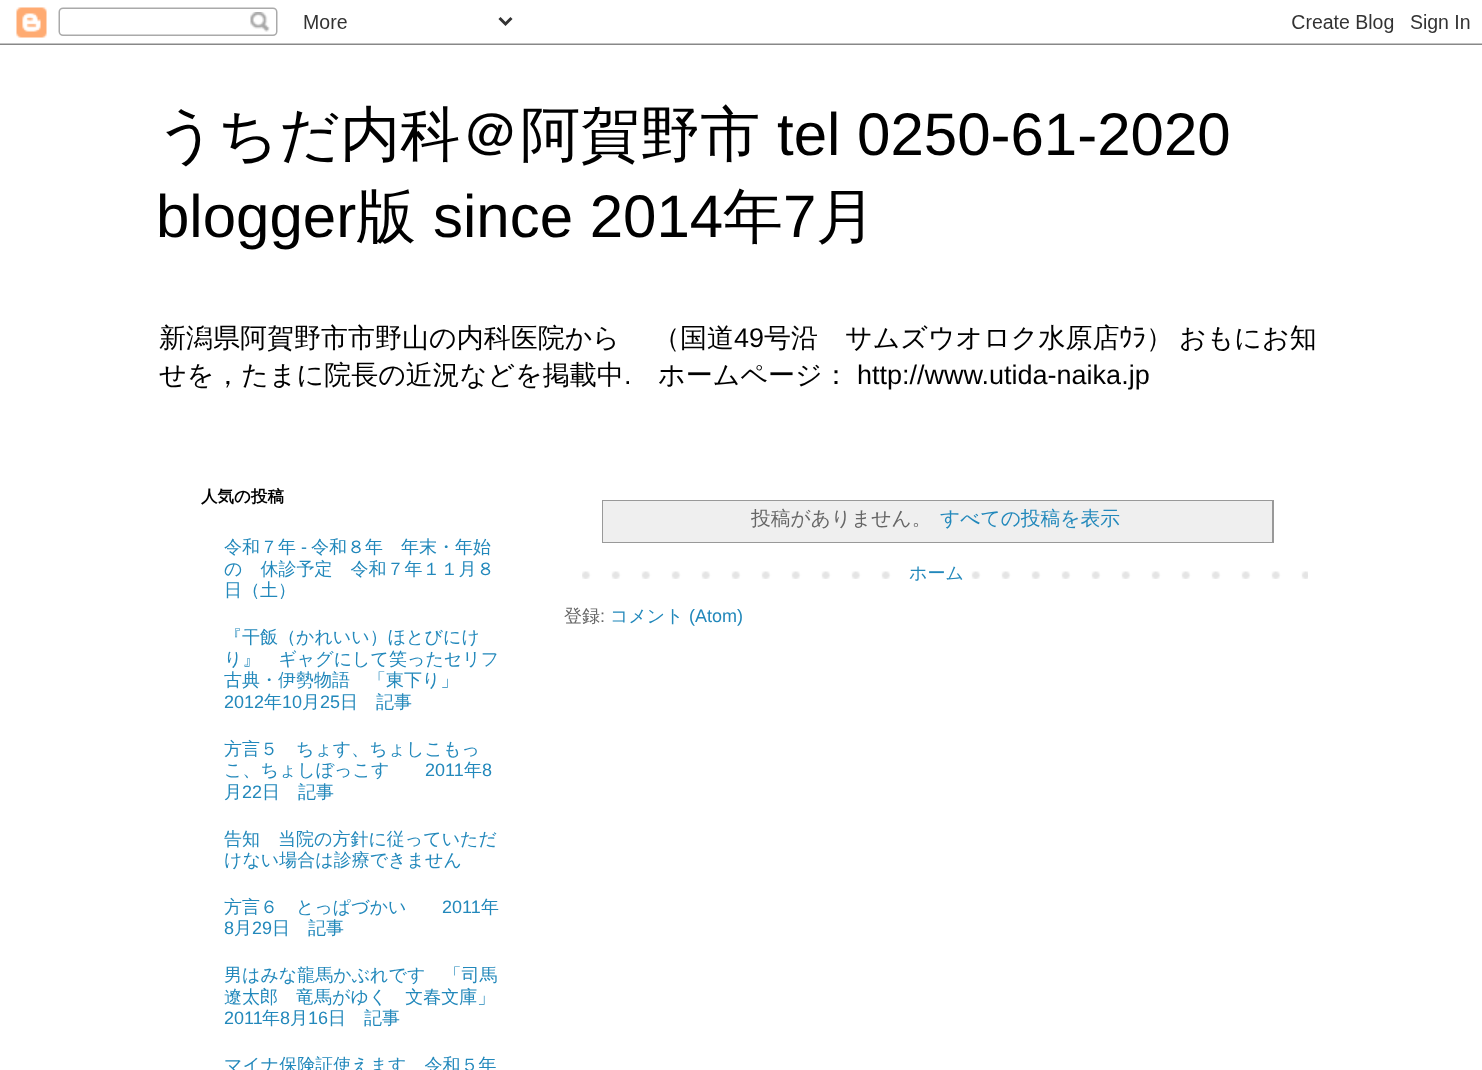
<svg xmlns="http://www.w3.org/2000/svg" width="1482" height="1070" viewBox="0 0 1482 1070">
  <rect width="100%" height="100%" fill="#ffffff"/>
  <image x="0" y="7" width="1482" height="38" href="img1.png"/>
  <text x="156" y="155" font-family="WenQuanYi Zen Hei" font-size="60" font-weight="500" fill="#000000">うちだ内科＠阿賀野市</text>
  <text x="777" y="155" font-family="Liberation Sans" font-size="60" fill="#000000">tel 0250-61-2020</text>
  <text x="156" y="237" font-family="Liberation Sans" font-size="60" fill="#000000">blogger</text>
  <text x="356" y="237" font-family="WenQuanYi Zen Hei" font-size="60" font-weight="500" fill="#000000">版</text>
  <text x="433" y="237" font-family="Liberation Sans" font-size="60" fill="#000000">since 2014</text>
  <text x="723" y="237" font-family="WenQuanYi Zen Hei" font-size="60" font-weight="500" fill="#000000">年</text>
  <text x="783" y="237" font-family="Liberation Sans" font-size="60" fill="#000000">7</text>
  <text x="816" y="237" font-family="WenQuanYi Zen Hei" font-size="60" font-weight="500" fill="#000000">月</text>
  <text x="159" y="347" word-spacing="-2" font-family="WenQuanYi Zen Hei" font-size="27" font-weight="500" fill="#000000">新潟県阿賀野市市野山の内科医院から　 （国道</text>
  <text x="734" y="347" font-family="Liberation Sans" font-size="27" fill="#000000">49</text>
  <text x="764" y="347" font-family="WenQuanYi Zen Hei" font-size="27" font-weight="500" fill="#000000">号沿　サムズウオロク水原店</text>
  <text x="1119" y="347" font-family="IPAPGothic" font-size="27" fill="#000000">ｳﾗ</text>
  <text x="1146" y="347" word-spacing="-2" font-family="WenQuanYi Zen Hei" font-size="27" font-weight="500" fill="#000000">） おもにお知</text>
  <text x="159" y="384" font-family="WenQuanYi Zen Hei" font-size="27" font-weight="500" fill="#000000">せを，たまに院長の近況などを掲載中</text>
  <text x="624" y="384" font-family="Liberation Sans" font-size="27" fill="#000000">.</text>
  <text x="658" y="384" font-family="WenQuanYi Zen Hei" font-size="27" font-weight="500" fill="#000000">ホームページ：</text>
  <text x="857" y="384" font-family="Liberation Sans" font-size="27" fill="#000000">http://www.utida-naika.jp</text>
  <text x="201" y="502" font-family="WenQuanYi Zen Hei" font-size="16.5" font-weight="bold" fill="#000000">人気の投稿</text>
  <text x="224" y="553" font-family="WenQuanYi Zen Hei" font-size="18" font-weight="500" fill="#2288bb">令和７年</text>
  <text x="301" y="553" font-family="Liberation Sans" font-size="18" fill="#2288bb">-</text>
  <text x="311" y="553" font-family="WenQuanYi Zen Hei" font-size="18" font-weight="500" fill="#2288bb">令和８年　年末・年始</text>
  <text x="224" y="575" font-family="WenQuanYi Zen Hei" font-size="18" font-weight="500" fill="#2288bb">の　休診予定　令和７年１１月８</text>
  <text x="224" y="596" font-family="WenQuanYi Zen Hei" font-size="18" font-weight="500" fill="#2288bb">日（土）</text>
  <text x="224" y="643" font-family="WenQuanYi Zen Hei" font-size="18" font-weight="500" fill="#2288bb">『干飯（かれいい）ほとびにけ</text>
  <text x="224" y="665" font-family="WenQuanYi Zen Hei" font-size="18" font-weight="500" fill="#2288bb">り』　ギャグにして笑ったセリフ</text>
  <text x="224" y="686" font-family="WenQuanYi Zen Hei" font-size="18" font-weight="500" fill="#2288bb">古典・伊勢物語　「東下り」</text>
  <text x="224" y="708" font-family="Liberation Sans" font-size="18" fill="#2288bb">2012</text>
  <text x="264" y="708" font-family="WenQuanYi Zen Hei" font-size="18" font-weight="500" fill="#2288bb">年</text>
  <text x="282" y="708" font-family="Liberation Sans" font-size="18" fill="#2288bb">10</text>
  <text x="302" y="708" font-family="WenQuanYi Zen Hei" font-size="18" font-weight="500" fill="#2288bb">月</text>
  <text x="320" y="708" font-family="Liberation Sans" font-size="18" fill="#2288bb">25</text>
  <text x="340" y="708" font-family="WenQuanYi Zen Hei" font-size="18" font-weight="500" fill="#2288bb">日　記事</text>
  <text x="224" y="755" font-family="WenQuanYi Zen Hei" font-size="18" font-weight="500" fill="#2288bb">方言５　ちょす、ちょしこもっ</text>
  <text x="224" y="776" font-family="WenQuanYi Zen Hei" font-size="18" font-weight="500" fill="#2288bb">こ、ちょしぼっこす</text>
  <text x="425" y="776" font-family="Liberation Sans" font-size="18" fill="#2288bb">2011</text>
  <text x="464" y="776" font-family="WenQuanYi Zen Hei" font-size="18" font-weight="500" fill="#2288bb">年</text>
  <text x="482" y="776" font-family="Liberation Sans" font-size="18" fill="#2288bb">8</text>
  <text x="224" y="798" font-family="WenQuanYi Zen Hei" font-size="18" font-weight="500" fill="#2288bb">月</text>
  <text x="242" y="798" font-family="Liberation Sans" font-size="18" fill="#2288bb">22</text>
  <text x="262" y="798" font-family="WenQuanYi Zen Hei" font-size="18" font-weight="500" fill="#2288bb">日　記事</text>
  <text x="224" y="845" font-family="WenQuanYi Zen Hei" font-size="18" font-weight="500" fill="#2288bb">告知　当院の方針に従っていただ</text>
  <text x="224" y="866" font-family="WenQuanYi Zen Hei" font-size="18" font-weight="500" fill="#2288bb">けない場合は診療できません</text>
  <text x="224" y="913" font-family="WenQuanYi Zen Hei" font-size="18" font-weight="500" fill="#2288bb">方言６　とっぱづかい</text>
  <text x="442" y="913" font-family="Liberation Sans" font-size="18" fill="#2288bb">2011</text>
  <text x="481" y="913" font-family="WenQuanYi Zen Hei" font-size="18" font-weight="500" fill="#2288bb">年</text>
  <text x="224" y="934" font-family="Liberation Sans" font-size="18" fill="#2288bb">8</text>
  <text x="234" y="934" font-family="WenQuanYi Zen Hei" font-size="18" font-weight="500" fill="#2288bb">月</text>
  <text x="252" y="934" font-family="Liberation Sans" font-size="18" fill="#2288bb">29</text>
  <text x="272" y="934" font-family="WenQuanYi Zen Hei" font-size="18" font-weight="500" fill="#2288bb">日　記事</text>
  <text x="224" y="981" font-family="WenQuanYi Zen Hei" font-size="18" font-weight="500" fill="#2288bb">男はみな龍馬かぶれです　「司馬</text>
  <text x="224" y="1003" font-family="WenQuanYi Zen Hei" font-size="18" font-weight="500" fill="#2288bb">遼太郎　竜馬がゆく　文春文庫」</text>
  <text x="224" y="1024" font-family="Liberation Sans" font-size="18" fill="#2288bb">2011</text>
  <text x="262" y="1024" font-family="WenQuanYi Zen Hei" font-size="18" font-weight="500" fill="#2288bb">年</text>
  <text x="280" y="1024" font-family="Liberation Sans" font-size="18" fill="#2288bb">8</text>
  <text x="290" y="1024" font-family="WenQuanYi Zen Hei" font-size="18" font-weight="500" fill="#2288bb">月</text>
  <text x="308" y="1024" font-family="Liberation Sans" font-size="18" fill="#2288bb">16</text>
  <text x="328" y="1024" font-family="WenQuanYi Zen Hei" font-size="18" font-weight="500" fill="#2288bb">日　記事</text>
  <text x="224" y="1071" font-family="WenQuanYi Zen Hei" font-size="18" font-weight="500" fill="#2288bb">マイナ保険証使えます　令和５年</text>
  <rect x="603" y="501" width="670" height="41" fill="none" stroke="#999999" stroke-width="2"/>
  <rect x="603" y="501" width="669" height="41" fill="#efefef"/>
  <text x="751" y="525" font-family="WenQuanYi Zen Hei" font-size="19.75" font-weight="500" fill="#666666">投稿がありません。</text>
  <text x="940" y="525" font-family="WenQuanYi Zen Hei" font-size="19.75" font-weight="500" fill="#2288bb">すべての投稿を表示</text>
  <image x="582" y="571" width="726" height="8" href="img2.png"/>
  <rect x="911" y="571" width="40" height="8" fill="#ffffff"/>
  <text x="909" y="579" font-family="WenQuanYi Zen Hei" font-size="18" font-weight="500" fill="#2288bb">ホーム</text>
  <text x="564" y="622" font-family="WenQuanYi Zen Hei" font-size="18" font-weight="500" fill="#666666">登録</text>
  <text x="600" y="622" font-family="Liberation Sans" font-size="18" fill="#666666">:</text>
  <text x="610" y="622" font-family="WenQuanYi Zen Hei" font-size="18" font-weight="500" fill="#2288bb">コメント</text>
  <text x="689" y="622" font-family="Liberation Sans" font-size="18" fill="#2288bb">(Atom)</text>
</svg>
